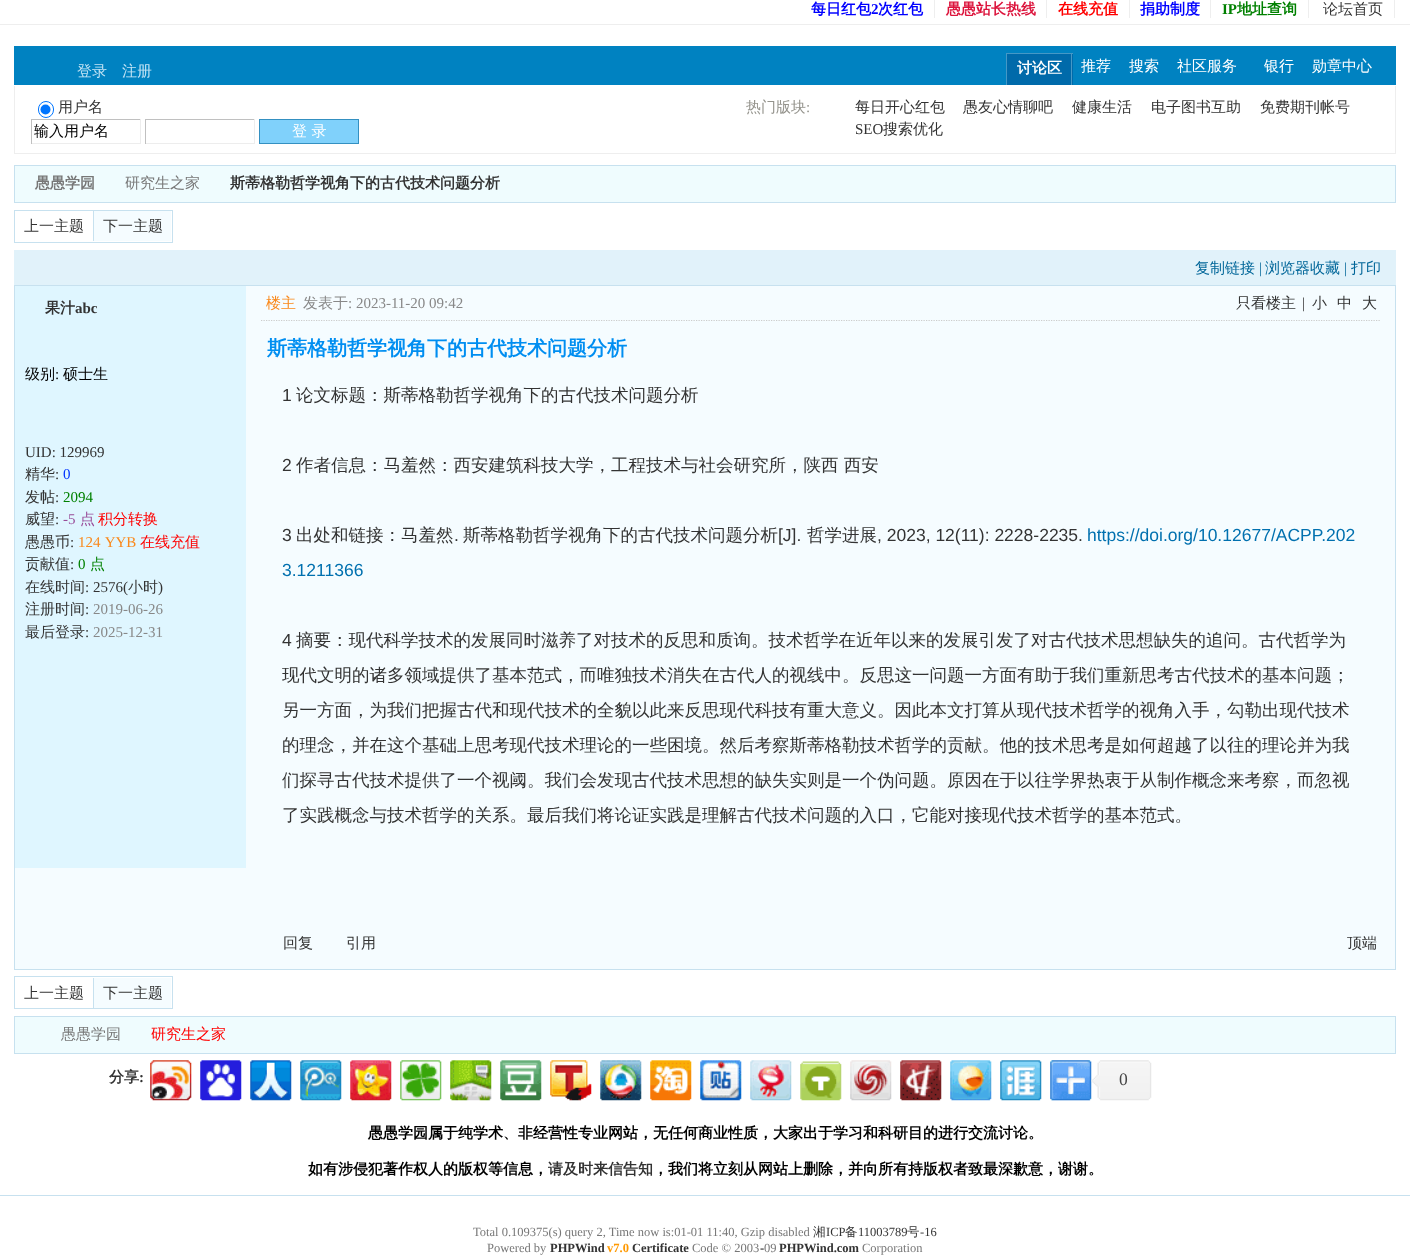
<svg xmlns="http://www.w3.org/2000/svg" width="1410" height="1259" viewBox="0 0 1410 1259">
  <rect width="100%" height="100%" fill="#ffffff"/>
  <rect x="0" y="24" width="1410" height="1" fill="#eeeeee"/>
  <text x="811" y="14" font-family="WenQuanYi Zen Hei" font-size="15" font-weight="bold" fill="#0000ff">每日红包</text>
  <text x="871" y="14" font-family="Liberation Serif" font-size="15" font-weight="bold" fill="#0000ff">2</text>
  <text x="878" y="14" font-family="WenQuanYi Zen Hei" font-size="15" font-weight="bold" fill="#0000ff">次红包</text>
  <rect x="934" y="0" width="1" height="18" fill="#eeeeee"/>
  <text x="946" y="14" font-family="WenQuanYi Zen Hei" font-size="15" font-weight="bold" fill="#dc143c">愚愚站长热线</text>
  <rect x="1046" y="0" width="1" height="18" fill="#eeeeee"/>
  <text x="1058" y="14" font-family="WenQuanYi Zen Hei" font-size="15" font-weight="bold" fill="#ff0000">在线充值</text>
  <rect x="1129" y="0" width="1" height="18" fill="#eeeeee"/>
  <text x="1140" y="14" font-family="WenQuanYi Zen Hei" font-size="15" font-weight="bold" fill="#0000ff">捐助制度</text>
  <rect x="1210" y="0" width="1" height="18" fill="#eeeeee"/>
  <text x="1222" y="14" font-family="Liberation Serif" font-size="15" font-weight="bold" fill="#008000">IP</text>
  <text x="1237" y="14" font-family="WenQuanYi Zen Hei" font-size="15" font-weight="bold" fill="#008000">地址查询</text>
  <rect x="1308" y="0" width="1" height="18" fill="#eeeeee"/>
  <text x="1323" y="14" font-family="WenQuanYi Zen Hei" font-size="15" font-weight="500" fill="#333333">论坛首页</text>
  <rect x="1394" y="0" width="1" height="18" fill="#eeeeee"/>
  <rect x="14" y="46" width="1382" height="39" fill="#0082c1"/>
  <text x="77" y="76" font-family="WenQuanYi Zen Hei" font-size="15" font-weight="500" fill="#c3e4f5">登录</text>
  <text x="122" y="76" font-family="WenQuanYi Zen Hei" font-size="15" font-weight="500" fill="#c3e4f5">注册</text>
  <rect x="1007" y="54" width="66" height="31" fill="#006aaa"/>
  <rect x="1006" y="53" width="67" height="1" fill="#4598c6"/>
  <rect x="1071" y="53" width="1" height="32" fill="#4598c6"/>
  <rect x="1006" y="53" width="1" height="32" fill="#4598c6"/>
  <text x="1017" y="73" font-family="WenQuanYi Zen Hei" font-size="15" font-weight="bold" fill="#ffffff">讨论区</text>
  <text x="1081" y="71" font-family="WenQuanYi Zen Hei" font-size="15" font-weight="500" fill="#ffffff">推荐</text>
  <text x="1129" y="71" font-family="WenQuanYi Zen Hei" font-size="15" font-weight="500" fill="#ffffff">搜索</text>
  <text x="1177" y="71" font-family="WenQuanYi Zen Hei" font-size="15" font-weight="500" fill="#ffffff">社区服务</text>
  <text x="1264" y="71" font-family="WenQuanYi Zen Hei" font-size="15" font-weight="500" fill="#ffffff">银行</text>
  <text x="1312" y="71" font-family="WenQuanYi Zen Hei" font-size="15" font-weight="500" fill="#ffffff">勋章中心</text>
  <rect x="1395" y="86" width="1" height="68" fill="#eeeeee"/>
  <rect x="14" y="153" width="1382" height="1" fill="#eeeeee"/>
  <rect x="14" y="86" width="1" height="68" fill="#eeeeee"/>
  <rect x="38.5" y="101.5" width="15" height="16" rx="7.5" fill="none" stroke="#0075ff"/>
  <circle cx="45.5" cy="109.5" r="5" fill="#0075ff"/>
  <text x="58" y="112" font-family="WenQuanYi Zen Hei" font-size="15" font-weight="500" fill="#333333">用户名</text>
  <rect x="31" y="119" width="110" height="1" fill="#c0c0c0"/>
  <rect x="140" y="119" width="1" height="25" fill="#ededed"/>
  <rect x="31" y="143" width="110" height="1" fill="#ededed"/>
  <rect x="31" y="119" width="1" height="25" fill="#c0c0c0"/>
  <text x="34" y="136" font-family="WenQuanYi Zen Hei" font-size="15" font-weight="500" fill="#000000">输入用户名</text>
  <rect x="145" y="119" width="110" height="1" fill="#c0c0c0"/>
  <rect x="254" y="119" width="1" height="25" fill="#ededed"/>
  <rect x="145" y="143" width="110" height="1" fill="#ededed"/>
  <rect x="145" y="119" width="1" height="25" fill="#c0c0c0"/>
  <rect x="259.5" y="119.5" width="99" height="24" fill="#80d1fb" stroke="#3490c1"/>
  <text x="292" y="136" font-family="WenQuanYi Zen Hei" font-size="15" font-weight="500" fill="#ffffff">登 录</text>
  <text x="746" y="112" font-family="WenQuanYi Zen Hei" font-size="15" font-weight="500" fill="#94938c">热门版块</text>
  <text x="806" y="112" font-family="Liberation Serif" font-size="15" fill="#94938c">:</text>
  <text x="855" y="112" font-family="WenQuanYi Zen Hei" font-size="15" font-weight="500" fill="#333333">每日开心红包</text>
  <text x="963" y="112" font-family="WenQuanYi Zen Hei" font-size="15" font-weight="500" fill="#333333">愚友心情聊吧</text>
  <text x="1072" y="112" font-family="WenQuanYi Zen Hei" font-size="15" font-weight="500" fill="#333333">健康生活</text>
  <text x="1151" y="112" font-family="WenQuanYi Zen Hei" font-size="15" font-weight="500" fill="#333333">电子图书互助</text>
  <text x="1260" y="112" font-family="WenQuanYi Zen Hei" font-size="15" font-weight="500" fill="#333333">免费期刊帐号</text>
  <text x="855" y="134" font-family="Liberation Serif" font-size="15" fill="#333333">SEO</text>
  <text x="883" y="134" font-family="WenQuanYi Zen Hei" font-size="15" font-weight="500" fill="#333333">搜索优化</text>
  <rect x="14.5" y="165.5" width="1381" height="37" fill="#effcfe" stroke="#c7e1ef"/>
  <text x="35" y="188" font-family="WenQuanYi Zen Hei" font-size="15" font-weight="bold" fill="#777777">愚愚学园</text>
  <text x="125" y="188" font-family="WenQuanYi Zen Hei" font-size="15" font-weight="500" fill="#777777">研究生之家</text>
  <text x="230" y="188" font-family="WenQuanYi Zen Hei" font-size="15" font-weight="bold" fill="#333333">斯蒂格勒哲学视角下的古代技术问题分析</text>
  <rect x="14.5" y="210.5" width="158" height="32" fill="none" stroke="#c7e1ef"/>
  <text x="24" y="231" font-family="WenQuanYi Zen Hei" font-size="15" font-weight="500" fill="#333333">上一主题</text>
  <rect x="94" y="211" width="77" height="30" fill="#f5fcff"/>
  <rect x="93" y="211" width="1" height="30" fill="#c7e1ef"/>
  <text x="103" y="231" font-family="WenQuanYi Zen Hei" font-size="15" font-weight="500" fill="#333333">下一主题</text>
  <rect x="14" y="250" width="1382" height="35" fill="#e1f2fa"/>
  <rect x="14" y="285" width="1382" height="1" fill="#c7e1ef"/>
  <text x="1195" y="273" font-family="WenQuanYi Zen Hei" font-size="15" font-weight="500" fill="#006699">复制链接</text>
  <text x="1259" y="273" font-family="Liberation Serif" font-size="15" fill="#006699">|</text>
  <text x="1265" y="273" font-family="WenQuanYi Zen Hei" font-size="15" font-weight="500" fill="#006699">浏览器收藏</text>
  <text x="1344" y="273" font-family="Liberation Serif" font-size="15" fill="#006699">|</text>
  <text x="1351" y="273" font-family="WenQuanYi Zen Hei" font-size="15" font-weight="500" fill="#006699">打印</text>
  <rect x="1395" y="286" width="1" height="684" fill="#c7e1ef"/>
  <rect x="14" y="969" width="1382" height="1" fill="#c7e1ef"/>
  <rect x="14" y="286" width="1" height="684" fill="#c7e1ef"/>
  <rect x="15" y="286" width="231" height="582" fill="#dff6ff"/>
  <text x="45" y="313" font-family="WenQuanYi Zen Hei" font-size="15" font-weight="bold" fill="#333333">果汁</text>
  <text x="75" y="313" font-family="Liberation Serif" font-size="15" font-weight="bold" fill="#333333">abc</text>
  <text x="25" y="379" font-family="WenQuanYi Zen Hei" font-size="15" font-weight="500" fill="#000000">级别</text>
  <text x="55" y="379" font-family="Liberation Serif" font-size="15" fill="#000000">:</text>
  <text x="63" y="379" font-family="WenQuanYi Zen Hei" font-size="15" font-weight="500" fill="#000000">硕士生</text>
  <text x="25" y="457" font-family="Liberation Serif" font-size="15" fill="#333333">UID: 129969</text>
  <text x="25" y="479" font-family="WenQuanYi Zen Hei" font-size="15" font-weight="500" fill="#333333">精华</text>
  <text x="55" y="479" font-family="Liberation Serif" font-size="15" fill="#333333">:</text>
  <text x="63" y="479" font-family="Liberation Serif" font-size="15" fill="#0033ff">0</text>
  <text x="25" y="502" font-family="WenQuanYi Zen Hei" font-size="15" font-weight="500" fill="#333333">发帖</text>
  <text x="55" y="502" font-family="Liberation Serif" font-size="15" fill="#333333">:</text>
  <text x="63" y="502" font-family="Liberation Serif" font-size="15" fill="#008000">2094</text>
  <text x="25" y="524" font-family="WenQuanYi Zen Hei" font-size="15" font-weight="500" fill="#333333">威望</text>
  <text x="55" y="524" font-family="Liberation Serif" font-size="15" fill="#333333">:</text>
  <text x="63" y="524" font-family="Liberation Serif" font-size="15" fill="#984b98">-5</text>
  <text x="80" y="524" font-family="WenQuanYi Zen Hei" font-size="15" font-weight="500" fill="#984b98">点</text>
  <text x="98" y="524" font-family="WenQuanYi Zen Hei" font-size="15" font-weight="500" fill="#ff0000">积分转换</text>
  <text x="25" y="547" font-family="WenQuanYi Zen Hei" font-size="15" font-weight="500" fill="#333333">愚愚币</text>
  <text x="70" y="547" font-family="Liberation Serif" font-size="15" fill="#333333">:</text>
  <text x="78" y="547" word-spacing="1" font-family="Liberation Serif" font-size="15" fill="#fa891b">124 YYB</text>
  <text x="140" y="547" font-family="WenQuanYi Zen Hei" font-size="15" font-weight="500" fill="#ff0000">在线充值</text>
  <text x="25" y="569" font-family="WenQuanYi Zen Hei" font-size="15" font-weight="500" fill="#333333">贡献值</text>
  <text x="70" y="569" font-family="Liberation Serif" font-size="15" fill="#333333">:</text>
  <text x="78" y="569" font-family="Liberation Serif" font-size="15" fill="#008000">0</text>
  <text x="90" y="569" font-family="WenQuanYi Zen Hei" font-size="15" font-weight="500" fill="#008000">点</text>
  <text x="25" y="592" font-family="WenQuanYi Zen Hei" font-size="15" font-weight="500" fill="#333333">在线时间</text>
  <text x="85" y="592" font-family="Liberation Serif" font-size="15" fill="#333333">: 2576(</text>
  <text x="128" y="592" font-family="WenQuanYi Zen Hei" font-size="15" font-weight="500" fill="#333333">小时</text>
  <text x="158" y="592" font-family="Liberation Serif" font-size="15" fill="#333333">)</text>
  <text x="25" y="614" font-family="WenQuanYi Zen Hei" font-size="15" font-weight="500" fill="#333333">注册时间</text>
  <text x="85" y="614" font-family="Liberation Serif" font-size="15" fill="#333333">:</text>
  <text x="93" y="614" font-family="Liberation Serif" font-size="15" fill="#888888">2019-06-26</text>
  <text x="25" y="637" font-family="WenQuanYi Zen Hei" font-size="15" font-weight="500" fill="#333333">最后登录</text>
  <text x="85" y="637" font-family="Liberation Serif" font-size="15" fill="#333333">:</text>
  <text x="93" y="637" font-family="Liberation Serif" font-size="15" fill="#888888">2025-12-31</text>
  <rect x="246" y="286" width="1149" height="582" fill="#f5fcff"/>
  <path d="M261 320.5H1380" fill="none" stroke="#cccccc" stroke-width="1.2" stroke-dasharray="1.25 1.25"/>
  <text x="266" y="308" font-family="WenQuanYi Zen Hei" font-size="15" font-weight="500" fill="#fa891b">楼主</text>
  <text x="303" y="308" font-family="WenQuanYi Zen Hei" font-size="15" font-weight="500" fill="#888888">发表于</text>
  <text x="348" y="308" font-family="Liberation Serif" font-size="15" fill="#888888">: 2023-11-20 09:42</text>
  <text x="1236" y="308" font-family="WenQuanYi Zen Hei" font-size="15" font-weight="500" fill="#333333">只看楼主</text>
  <text x="1302" y="308" font-family="Liberation Serif" font-size="15" fill="#333333">|</text>
  <text x="1312" y="308" font-family="WenQuanYi Zen Hei" font-size="15" font-weight="500" fill="#333333">小</text>
  <text x="1337" y="308" font-family="WenQuanYi Zen Hei" font-size="15" font-weight="500" fill="#333333">中</text>
  <text x="1362" y="308" font-family="WenQuanYi Zen Hei" font-size="15" font-weight="500" fill="#333333">大</text>
  <text x="267" y="355" font-family="WenQuanYi Zen Hei" font-size="20" font-weight="bold" fill="#008ef1">斯蒂格勒哲学视角下的古代技术问题分析</text>
  <text x="282" y="401" font-family="Liberation Sans" font-size="17.5" fill="#333333">1</text>
  <text x="296" y="401" font-family="WenQuanYi Zen Hei" font-size="17.5" font-weight="500" fill="#333333">论文标题：斯蒂格勒哲学视角下的古代技术问题分析</text>
  <text x="282" y="471" font-family="Liberation Sans" font-size="17.5" fill="#333333">2</text>
  <text x="296" y="471" font-family="WenQuanYi Zen Hei" font-size="17.5" font-weight="500" fill="#333333">作者信息：马羞然：西安建筑科技大学，工程技术与社会研究所，陕西 西安</text>
  <text x="282" y="541" font-family="Liberation Sans" font-size="17.5" fill="#333333">3</text>
  <text x="296" y="541" font-family="WenQuanYi Zen Hei" font-size="17.5" font-weight="500" fill="#333333">出处和链接：马羞然</text>
  <text x="454" y="541" font-family="Liberation Sans" font-size="17.5" fill="#333333">.</text>
  <text x="463" y="541" font-family="WenQuanYi Zen Hei" font-size="17.5" font-weight="500" fill="#333333">斯蒂格勒哲学视角下的古代技术问题分析</text>
  <text x="778" y="541" font-family="Liberation Sans" font-size="17.5" fill="#333333">[J].</text>
  <text x="807" y="541" font-family="WenQuanYi Zen Hei" font-size="17.5" font-weight="500" fill="#333333">哲学进展</text>
  <text x="877" y="541" font-family="Liberation Sans" font-size="17.5" fill="#333333">, 2023, 12(11): 2228-2235.</text>
  <text x="1087" y="541" font-family="Liberation Sans" font-size="17.5" fill="#0070af">https://doi.org/10.12677/ACPP.202</text>
  <text x="282" y="576" font-family="Liberation Sans" font-size="17.5" fill="#0070af">3.1211366</text>
  <text x="282" y="646" font-family="Liberation Sans" font-size="17.5" fill="#333333">4</text>
  <text x="296" y="646" font-family="WenQuanYi Zen Hei" font-size="17.5" font-weight="500" fill="#333333">摘要：现代科学技术的发展同时滋养了对技术的反思和质询。技术哲学在近年以来的发展引发了对古代技术思想缺失的追问。古代哲学为</text>
  <text x="282" y="681" font-family="WenQuanYi Zen Hei" font-size="17.5" font-weight="500" fill="#333333">现代文明的诸多领域提供了基本范式，而唯独技术消失在古代人的视线中。反思这一问题一方面有助于我们重新思考古代技术的基本问题；</text>
  <text x="282" y="716" font-family="WenQuanYi Zen Hei" font-size="17.5" font-weight="500" fill="#333333">另一方面，为我们把握古代和现代技术的全貌以此来反思现代科技有重大意义。因此本文打算从现代技术哲学的视角入手，勾勒出现代技术</text>
  <text x="282" y="751" font-family="WenQuanYi Zen Hei" font-size="17.5" font-weight="500" fill="#333333">的理念，并在这个基础上思考现代技术理论的一些困境。然后考察斯蒂格勒技术哲学的贡献。他的技术思考是如何超越了以往的理论并为我</text>
  <text x="282" y="786" font-family="WenQuanYi Zen Hei" font-size="17.5" font-weight="500" fill="#333333">们探寻古代技术提供了一个视阈。我们会发现古代技术思想的缺失实则是一个伪问题。原因在于以往学界热衷于从制作概念来考察，而忽视</text>
  <text x="282" y="821" font-family="WenQuanYi Zen Hei" font-size="17.5" font-weight="500" fill="#333333">了实践概念与技术哲学的关系。最后我们将论证实践是理解古代技术问题的入口，它能对接现代技术哲学的基本范式。</text>
  <rect x="15" y="868" width="1380" height="101" fill="#f5fcff"/>
  <text x="283" y="948" font-family="WenQuanYi Zen Hei" font-size="15" font-weight="500" fill="#333333">回复</text>
  <text x="346" y="948" font-family="WenQuanYi Zen Hei" font-size="15" font-weight="500" fill="#333333">引用</text>
  <text x="1347" y="948" font-family="WenQuanYi Zen Hei" font-size="15" font-weight="500" fill="#333333">顶端</text>
  <rect x="14.5" y="976.5" width="158" height="32" fill="none" stroke="#c7e1ef"/>
  <text x="24" y="998" font-family="WenQuanYi Zen Hei" font-size="15" font-weight="500" fill="#333333">上一主题</text>
  <rect x="94" y="978" width="77" height="30" fill="#f5fcff"/>
  <rect x="93" y="978" width="1" height="30" fill="#c7e1ef"/>
  <text x="103" y="998" font-family="WenQuanYi Zen Hei" font-size="15" font-weight="500" fill="#333333">下一主题</text>
  <rect x="14.5" y="1016.5" width="1381" height="37" fill="#effcfe" stroke="#c7e1ef"/>
  <text x="61" y="1039" font-family="WenQuanYi Zen Hei" font-size="15" font-weight="500" fill="#777777">愚愚学园</text>
  <text x="151" y="1039" font-family="WenQuanYi Zen Hei" font-size="15" font-weight="500" fill="#ff0000">研究生之家</text>
  <text x="109" y="1082" font-family="WenQuanYi Zen Hei" font-size="15" font-weight="bold" fill="#333333">分享</text>
  <text x="139" y="1082" font-family="Liberation Serif" font-size="15" font-weight="bold" fill="#333333">:</text>
  <image x="150" y="1060" width="42" height="41" href="img1.png"/>
  <image x="200" y="1060" width="42" height="41" href="img2.png"/>
  <image x="250" y="1060" width="42" height="41" href="img3.png"/>
  <image x="300" y="1060" width="42" height="41" href="img4.png"/>
  <image x="350" y="1060" width="42" height="41" href="img5.png"/>
  <image x="400" y="1060" width="42" height="41" href="img6.png"/>
  <image x="450" y="1060" width="42" height="41" href="img7.png"/>
  <image x="500" y="1060" width="42" height="41" href="img8.png"/>
  <image x="550" y="1060" width="42" height="41" href="img9.png"/>
  <image x="600" y="1060" width="42" height="41" href="img10.png"/>
  <image x="650" y="1060" width="42" height="41" href="img11.png"/>
  <image x="700" y="1060" width="42" height="41" href="img12.png"/>
  <image x="750" y="1060" width="42" height="41" href="img13.png"/>
  <image x="800" y="1061" width="42" height="40" href="img14.png"/>
  <image x="850" y="1060" width="42" height="41" href="img15.png"/>
  <image x="900" y="1060" width="42" height="41" href="img16.png"/>
  <image x="950" y="1060" width="42" height="41" href="img17.png"/>
  <image x="1000" y="1060" width="42" height="41" href="img18.png"/>
  <image x="1050" y="1060" width="42" height="41" href="img19.png"/>
  <image x="1091" y="1060" width="61" height="41" href="img20.png"/>
  <text x="1119" y="1085" font-family="Liberation Serif" font-size="17.5" fill="#454545">0</text>
  <text x="368" y="1138" font-family="WenQuanYi Zen Hei" font-size="15" font-weight="bold" fill="#000000">愚愚学园属于纯学术、非经营性专业网站，无任何商业性质，大家出于学习和科研目的进行交流讨论。</text>
  <text x="308" y="1174" font-family="WenQuanYi Zen Hei" font-size="15" font-weight="bold" fill="#000000">如有涉侵犯著作权人的版权等信息，</text>
  <text x="548" y="1174" font-family="WenQuanYi Zen Hei" font-size="15" font-weight="bold" fill="#333333">请及时来信告知</text>
  <text x="653" y="1174" font-family="WenQuanYi Zen Hei" font-size="15" font-weight="bold" fill="#000000">，我们将立刻从网站上删除，并向所有持版权者致最深歉意，谢谢。</text>
  <rect x="0" y="1195" width="1410" height="1" fill="#c7e1ef"/>
  <text x="473" y="1236" font-family="Liberation Serif" font-size="12.5" fill="#777777">Total 0.109375(s) query 2, Time now is:01-01 11:40, Gzip disabled</text>
  <text x="813" y="1236" font-family="WenQuanYi Zen Hei" font-size="12.5" font-weight="500" fill="#333333">湘</text>
  <text x="826" y="1236" font-family="Liberation Serif" font-size="12.5" fill="#333333">ICP</text>
  <text x="845" y="1236" font-family="WenQuanYi Zen Hei" font-size="12.5" font-weight="500" fill="#333333">备</text>
  <text x="858" y="1236" font-family="Liberation Serif" font-size="12.5" fill="#333333">11003789</text>
  <text x="907" y="1236" font-family="WenQuanYi Zen Hei" font-size="12.5" font-weight="500" fill="#333333">号</text>
  <text x="920" y="1236" font-family="Liberation Serif" font-size="12.5" fill="#333333">-16</text>
  <text x="487" y="1252" font-family="Liberation Serif" font-size="12.5" fill="#777777">Powered by</text>
  <text x="550" y="1252" font-family="Liberation Serif" font-size="12.5" font-weight="bold" fill="#333333">PHPWind</text>
  <text x="607" y="1252" font-family="Liberation Serif" font-size="12.5" font-weight="bold" fill="#ff9900">v7.0</text>
  <text x="632" y="1252" font-family="Liberation Serif" font-size="12.5" font-weight="bold" fill="#333333">Certificate</text>
  <text x="692" y="1252" font-family="Liberation Serif" font-size="12.5" fill="#777777">Code © 2003</text>
  <text x="760" y="1252" font-family="Liberation Serif" font-size="12.5" fill="#000000">-</text>
  <text x="764" y="1252" font-family="Liberation Serif" font-size="12.5" fill="#777777">09</text>
  <text x="779" y="1252" font-family="Liberation Serif" font-size="12.5" font-weight="bold" fill="#333333">PHPWind.com</text>
  <text x="862" y="1252" font-family="Liberation Serif" font-size="12.5" fill="#777777">Corporation</text>
</svg>
